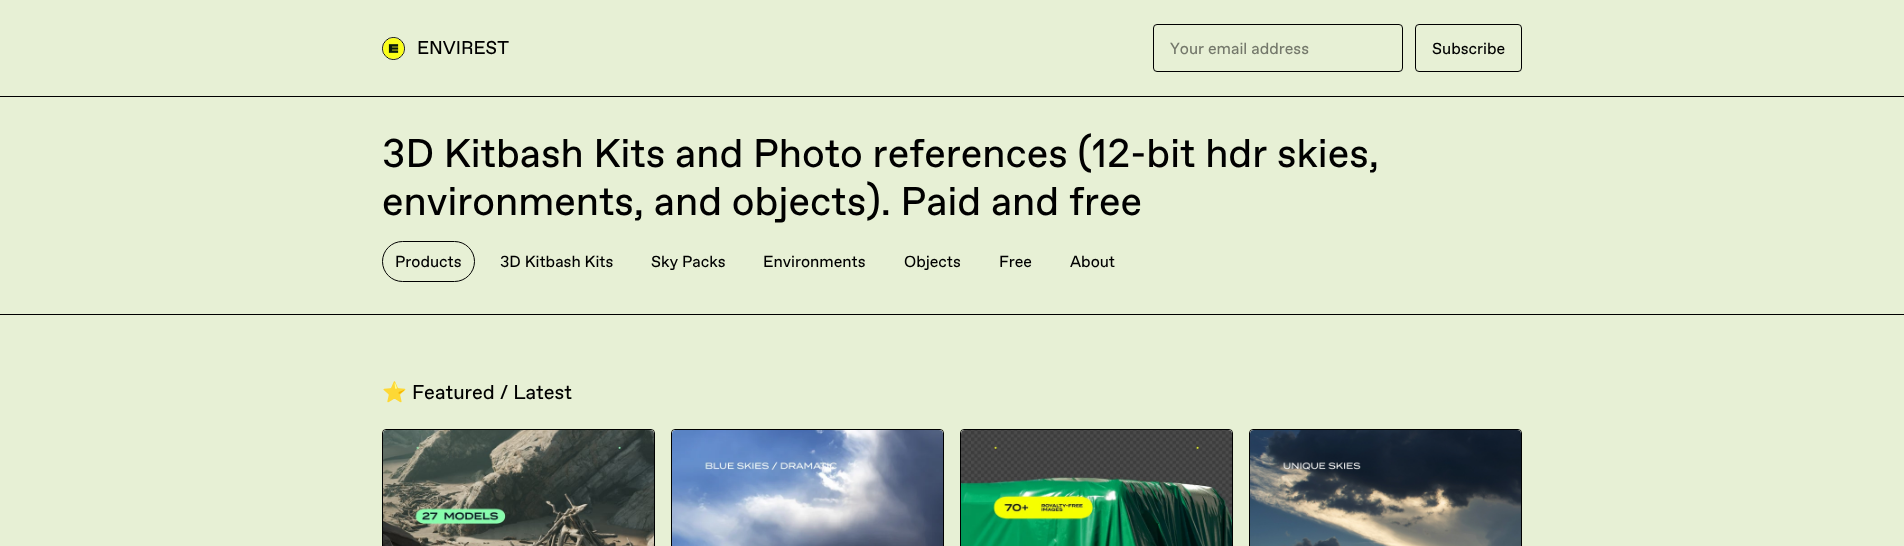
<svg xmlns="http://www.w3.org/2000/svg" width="1904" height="546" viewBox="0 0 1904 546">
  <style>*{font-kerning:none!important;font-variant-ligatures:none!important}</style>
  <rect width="100%" height="100%" fill="#e7f0d5"/>
  <rect x="0" y="96" width="1904" height="1" fill="#000000"/>
  <circle cx="393.5" cy="48.5" r="11" fill="none" stroke="#000000"/>
  <image x="383" y="38" width="21" height="21" href="img1.png"/>
  <text x="417" y="54" font-family="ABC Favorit" font-size="18.5" fill="#000000">ENVIREST</text>
  <rect x="1153.5" y="24.5" width="249" height="47" rx="3.5" fill="none" stroke="#000000"/>
  <text x="1170" y="54" font-family="ABC Favorit" font-size="16" fill="#74786b">Your email address</text>
  <rect x="1415.5" y="24.5" width="106" height="47" rx="3.5" fill="none" stroke="#000000"/>
  <text x="1432" y="54" font-family="ABC Favorit" font-size="16" fill="#000000">Subscribe</text>
  <rect x="0" y="314" width="1904" height="1" fill="#000000"/>
  <text x="382" y="167" font-family="ABC Favorit" font-size="40" fill="#000000">3D Kitbash Kits and Photo references (12-bit hdr skies,</text>
  <text x="382" y="215" font-family="ABC Favorit" font-size="40" fill="#000000">environments, and objects). Paid and free</text>
  <rect x="382.5" y="241.5" width="92" height="40" rx="20" fill="none" stroke="#000000"/>
  <text x="395" y="267" font-family="ABC Favorit" font-size="16" fill="#000000">Products</text>
  <text x="500" y="267" font-family="ABC Favorit" font-size="16" fill="#000000">3D Kitbash Kits</text>
  <text x="651" y="267" font-family="ABC Favorit" font-size="16" fill="#000000">Sky Packs</text>
  <text x="763" y="267" font-family="ABC Favorit" font-size="16" fill="#000000">Environments</text>
  <text x="904" y="267" font-family="ABC Favorit" font-size="16" fill="#000000">Objects</text>
  <text x="999" y="267" font-family="ABC Favorit" font-size="16" fill="#000000">Free</text>
  <text x="1070" y="267" font-family="ABC Favorit" font-size="16" fill="#000000">About</text>
  <text x="382" y="399" font-family="Noto Color Emoji" font-size="20" fill="#000000">⭐</text>
  <text x="412" y="399" font-family="ABC Favorit" font-size="20" fill="#000000">Featured / Latest</text>
  <rect x="382.5" y="429.5" width="272" height="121" rx="3.5" fill="none" stroke="#000000"/>
  <image x="383" y="430" width="271" height="4" href="img2.png"/>
  <image x="383" y="430" width="271" height="116" href="img3.png"/>
  <rect x="671.5" y="429.5" width="272" height="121" rx="3.5" fill="none" stroke="#000000"/>
  <image x="672" y="430" width="271" height="4" href="img2.png"/>
  <image x="672" y="430" width="271" height="116" href="img4.png"/>
  <rect x="960.5" y="429.5" width="272" height="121" rx="3.5" fill="none" stroke="#000000"/>
  <image x="961" y="430" width="271" height="4" href="img2.png"/>
  <image x="961" y="430" width="271" height="116" href="img5.png"/>
  <rect x="1249.5" y="429.5" width="272" height="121" rx="3.5" fill="none" stroke="#000000"/>
  <image x="1250" y="430" width="271" height="4" href="img2.png"/>
  <image x="1250" y="430" width="271" height="116" href="img6.png"/>
</svg>
